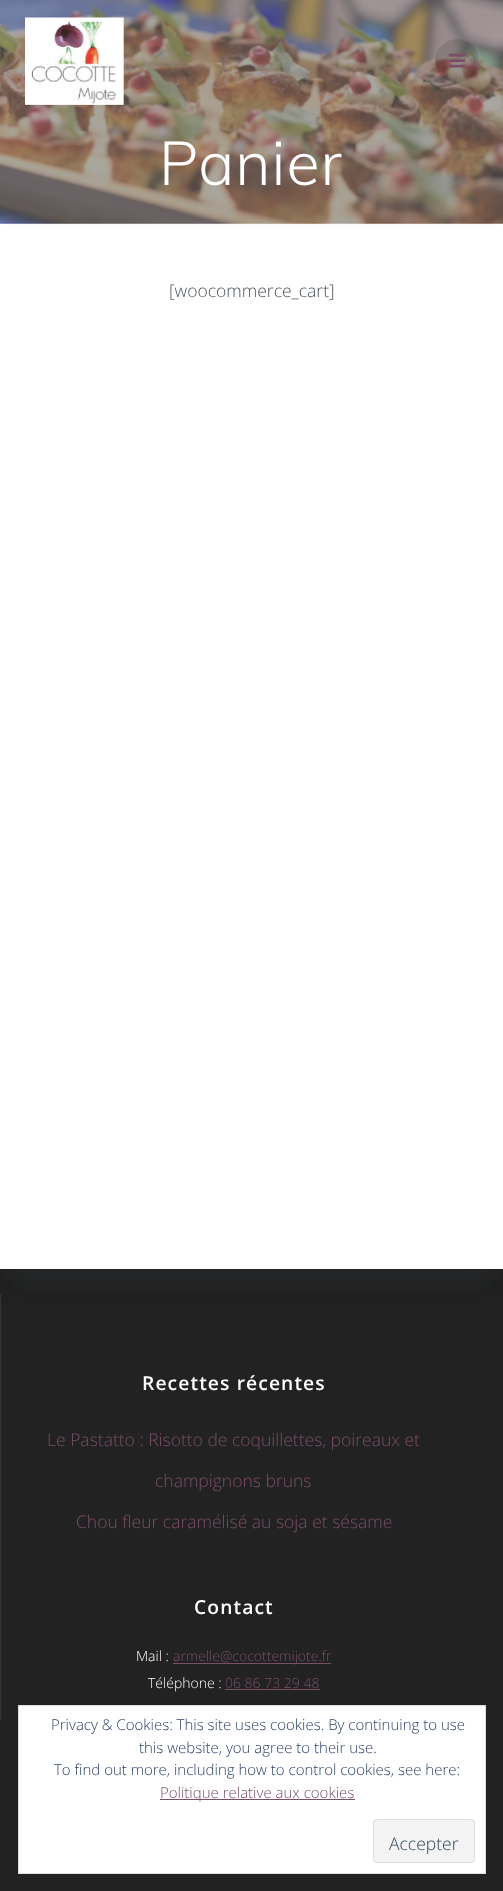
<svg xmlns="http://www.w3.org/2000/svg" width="503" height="1891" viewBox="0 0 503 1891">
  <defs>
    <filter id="blur1" x="-50%" y="-200%" width="200%" height="500%"><feGaussianBlur stdDeviation="19"/></filter>
    <filter id="blur2" x="-50%" y="-200%" width="200%" height="500%"><feGaussianBlur stdDeviation="12.5"/></filter>
  </defs>
  <rect width="100%" height="100%" fill="#ffffff"/>
  <image x="0" y="0" width="503" height="224" href="img3.png"/>
  <image x="25" y="17" width="99" height="88" href="img1.png"/>
  <circle cx="457" cy="61" r="22" fill="#000000" fill-opacity="0.1"/>
  <image x="448" y="53" width="18" height="15" href="img2.png"/>
  <text x="159" y="185" font-family="Muli" font-size="61" font-weight="300" letter-spacing="1" fill="#ffffff">Panier</text>
  <rect x="0" y="1269" width="503" height="622" fill="#222222"/>
  <rect x="0" y="1294" width="1" height="426" fill="#353535"/>
  <rect x="0" y="249" width="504" height="1045" fill="#000000" fill-opacity="0.08" filter="url(#blur1)"/>
  <rect x="13" y="261" width="478" height="1020" fill="#313439" fill-opacity="0.3" filter="url(#blur2)"/>
  <rect x="0" y="227" width="503" height="1042" fill="#ffffff"/>
  <text x="169" y="297" font-family="Open Sans" font-size="17.5" font-weight="300" fill="#4e545a">[woocommerce_cart]</text>
  <text x="142" y="1390" font-family="Open Sans" font-size="19.25" font-weight="600" letter-spacing="1.1" fill="#ffffff">Recettes récentes</text>
  <text x="47" y="1446" font-family="Open Sans" font-size="17.5" font-weight="300" fill="#794f67">Le Pastatto : Risotto de coquillettes, poireaux et</text>
  <text x="155" y="1487" font-family="Open Sans" font-size="17.5" font-weight="300" fill="#794f67">champignons bruns</text>
  <text x="76" y="1528" font-family="Open Sans" font-size="17.5" font-weight="300" fill="#794f67">Chou fleur caramélisé au soja et sésame</text>
  <text x="194" y="1614" font-family="Open Sans" font-size="19.25" font-weight="600" letter-spacing="1.1" fill="#ffffff">Contact</text>
  <text x="136" y="1661" font-family="Open Sans" font-size="14" font-weight="300" fill="#ffffff">Mail :</text>
  <rect x="173" y="1663" width="158" height="1" fill="#794f67"/>
  <text x="173" y="1661" font-family="Open Sans" font-size="14" font-weight="300" fill="#794f67">armelle@cocottemijote.fr</text>
  <text x="148" y="1688" font-family="Open Sans" font-size="14" font-weight="300" fill="#ffffff">Téléphone :</text>
  <text x="225" y="1688" font-family="Open Sans" font-size="14" font-weight="300" fill="#794f67">06 86 73 29 48</text>
  <rect x="225" y="1689" width="95" height="1" fill="#794f67"/>
  <rect x="18.5" y="1705.5" width="467" height="168" fill="#ffffff" stroke="#dedede"/>
  <text x="51" y="1730" font-family="Open Sans" font-size="15" font-weight="300" fill="#2e4467">Privacy &amp; Cookies: This site uses cookies. By continuing to use</text>
  <text x="139" y="1753" font-family="Open Sans" font-size="15" font-weight="300" fill="#2e4467">this website, you agree to their use.</text>
  <text x="54" y="1775" font-family="Open Sans" font-size="15" font-weight="300" fill="#2e4467">To find out more, including how to control cookies, see here:</text>
  <rect x="160" y="1799" width="195" height="1" fill="#794f67"/>
  <text x="160" y="1798" font-family="Open Sans" font-size="15" font-weight="300" fill="#794f67">Politique relative aux cookies</text>
  <rect x="373.5" y="1819.5" width="101" height="43" rx="3.5" fill="#f3f3f3" stroke="#dedede"/>
  <text x="389" y="1850" font-family="Open Sans" font-size="17.5" font-weight="300" fill="#2e4453">Accepter</text>
</svg>
